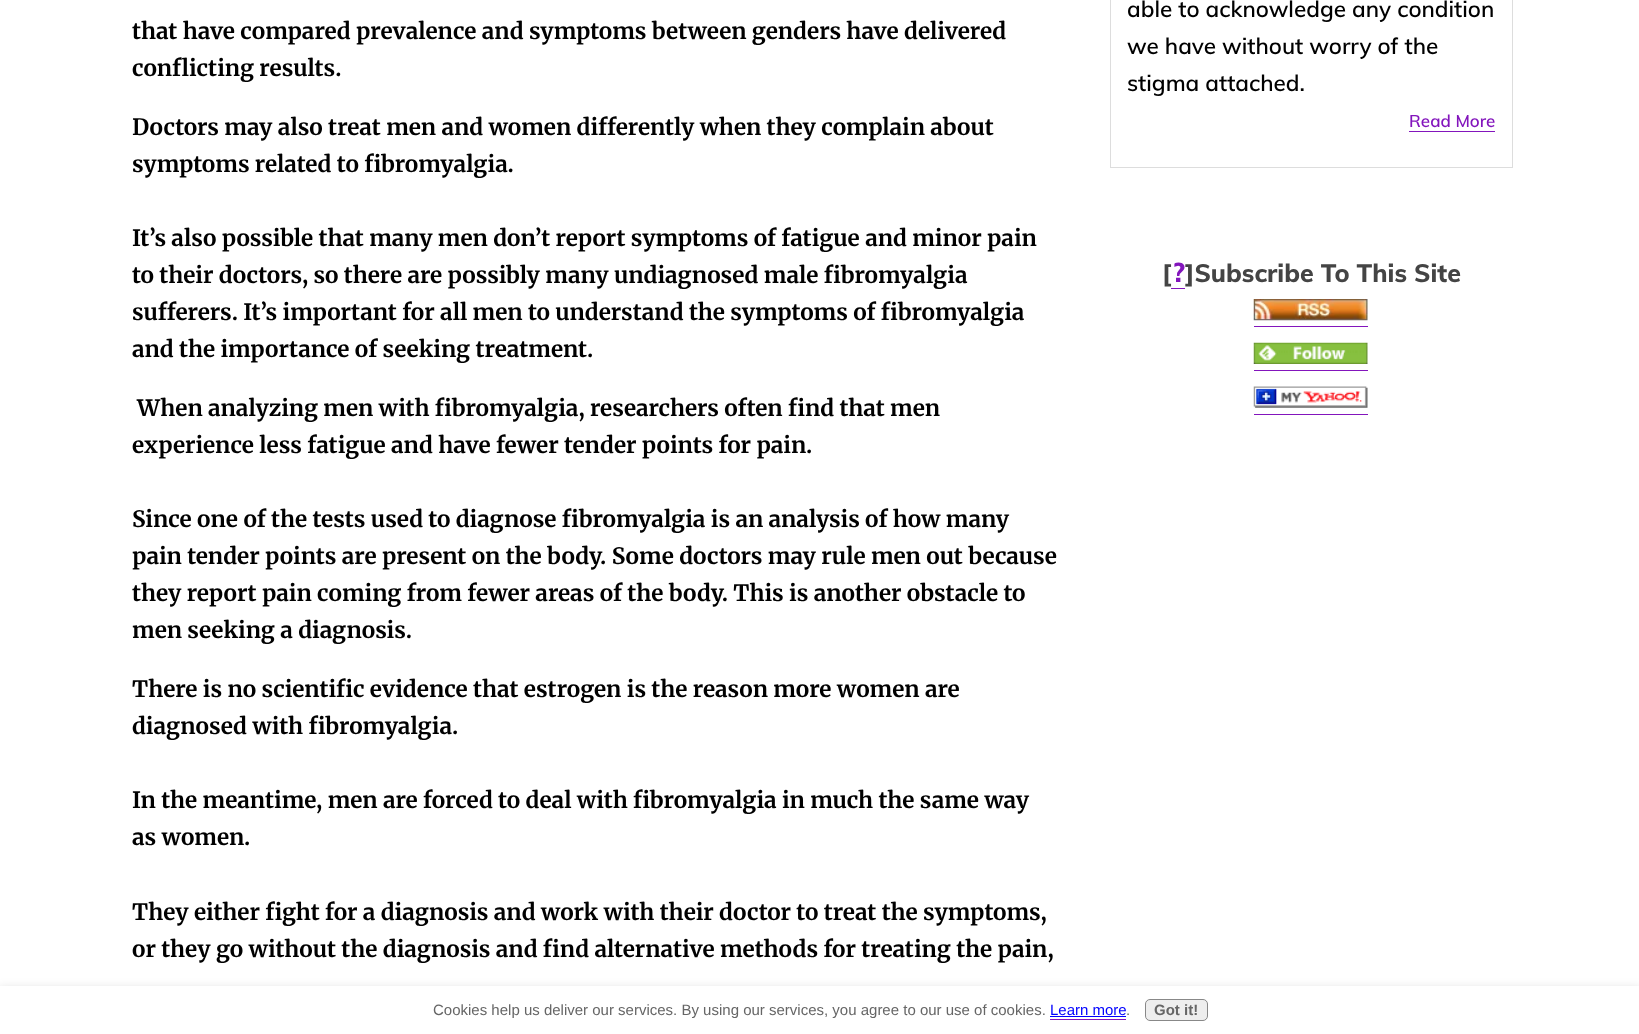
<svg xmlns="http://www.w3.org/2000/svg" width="1639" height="1034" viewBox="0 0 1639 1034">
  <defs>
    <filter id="blur1" x="-50%" y="-200%" width="200%" height="500%"><feGaussianBlur stdDeviation="6"/></filter>
  </defs>
  <rect width="100%" height="100%" fill="#ffffff"/>
  <text x="132" y="39" font-family="Merriweather" font-size="22.5" font-weight="bold" fill="#000000">that have compared prevalence and symptoms between genders have delivered</text>
  <text x="132" y="76" font-family="Merriweather" font-size="22.5" font-weight="bold" fill="#000000">conflicting results.</text>
  <text x="132" y="135" font-family="Merriweather" font-size="22.5" font-weight="bold" fill="#000000">Doctors may also treat men and women differently when they complain about</text>
  <text x="132" y="172" font-family="Merriweather" font-size="22.5" font-weight="bold" fill="#000000">symptoms related to fibromyalgia.</text>
  <text x="132" y="246" font-family="Merriweather" font-size="22.5" font-weight="bold" fill="#000000">It’s also possible that many men don’t report symptoms of fatigue and minor pain</text>
  <text x="132" y="283" font-family="Merriweather" font-size="22.5" font-weight="bold" fill="#000000">to their doctors, so there are possibly many undiagnosed male fibromyalgia</text>
  <text x="132" y="320" font-family="Merriweather" font-size="22.5" font-weight="bold" fill="#000000">sufferers. It’s important for all men to understand the symptoms of fibromyalgia</text>
  <text x="132" y="357" font-family="Merriweather" font-size="22.5" font-weight="bold" fill="#000000">and the importance of seeking treatment.</text>
  <text x="137" y="416" font-family="Merriweather" font-size="22.5" font-weight="bold" fill="#000000">When analyzing men with fibromyalgia, researchers often find that men</text>
  <text x="132" y="453" font-family="Merriweather" font-size="22.5" font-weight="bold" fill="#000000">experience less fatigue and have fewer tender points for pain.</text>
  <text x="132" y="527" font-family="Merriweather" font-size="22.5" font-weight="bold" fill="#000000">Since one of the tests used to diagnose fibromyalgia is an analysis of how many</text>
  <text x="132" y="564" font-family="Merriweather" font-size="22.5" font-weight="bold" fill="#000000">pain tender points are present on the body. Some doctors may rule men out because</text>
  <text x="132" y="601" font-family="Merriweather" font-size="22.5" font-weight="bold" fill="#000000">they report pain coming from fewer areas of the body. This is another obstacle to</text>
  <text x="132" y="638" font-family="Merriweather" font-size="22.5" font-weight="bold" fill="#000000">men seeking a diagnosis.</text>
  <text x="132" y="697" font-family="Merriweather" font-size="22.5" font-weight="bold" fill="#000000">There is no scientific evidence that estrogen is the reason more women are</text>
  <text x="132" y="734" font-family="Merriweather" font-size="22.5" font-weight="bold" fill="#000000">diagnosed with fibromyalgia.</text>
  <text x="132" y="808" font-family="Merriweather" font-size="22.5" font-weight="bold" fill="#000000">In the meantime, men are forced to deal with fibromyalgia in much the same way</text>
  <text x="132" y="845" font-family="Merriweather" font-size="22.5" font-weight="bold" fill="#000000">as women.</text>
  <text x="132" y="920" font-family="Merriweather" font-size="22.5" font-weight="bold" fill="#000000">They either fight for a diagnosis and work with their doctor to treat the symptoms,</text>
  <text x="132" y="957" font-family="Merriweather" font-size="22.5" font-weight="bold" fill="#000000">or they go without the diagnosis and find alternative methods for treating the pain,</text>
  <rect x="1110.5" y="-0.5" width="402" height="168" fill="none" stroke="#dddddd"/>
  <text x="1127" y="17" font-family="Muli" font-size="22.5" font-weight="600" fill="#000000">able to acknowledge any condition</text>
  <text x="1127" y="54" font-family="Muli" font-size="22.5" font-weight="600" fill="#000000">we have without worry of the</text>
  <text x="1127" y="91" font-family="Muli" font-size="22.5" font-weight="600" fill="#000000">stigma attached.</text>
  <text x="1409" y="127" font-family="Muli" font-size="17" font-weight="600" fill="#8315bc">Read More</text>
  <rect x="1409" y="131" width="86" height="1" fill="#8315bc"/>
  <text x="1162" y="282" font-family="Muli" font-size="25" font-weight="800" fill="#444444">[</text>
  <text x="1172" y="282" font-family="Muli" font-size="27" font-weight="800" fill="#8315bc">?</text>
  <rect x="1171" y="288" width="14" height="1" fill="#8315bc"/>
  <text x="1185" y="282" font-family="Muli" font-size="25" font-weight="800" fill="#444444">]Subscribe To This Site</text>
  <image x="1253" y="299" width="115" height="22" href="img1.png"/>
  <rect x="1254" y="326" width="114" height="1" fill="#8315bc"/>
  <image x="1253" y="342" width="115" height="22" href="img2.png"/>
  <rect x="1254" y="370" width="114" height="1" fill="#8315bc"/>
  <image x="1253" y="386" width="115" height="22" href="img3.png"/>
  <rect x="1254" y="414" width="114" height="1" fill="#8315bc"/>
  <rect x="-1" y="990" width="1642" height="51" fill="#000000" fill-opacity="0.2" filter="url(#blur1)"/>
  <rect x="0" y="986" width="1639" height="48" fill="#ffffff"/>
  <text x="433" y="1015" font-family="Liberation Sans" font-size="15" fill="#666666">Cookies help us deliver our services. By using our services, you agree to our use of cookies.</text>
  <text x="1050" y="1015" font-family="Liberation Sans" font-size="15" fill="#0000ff">Learn more</text>
  <rect x="1050" y="1019" width="76" height="1" fill="#8315bc"/>
  <rect x="1050" y="1016" width="76" height="1" fill="#0000ff"/>
  <text x="1126" y="1015" font-family="Liberation Sans" font-size="15" fill="#666666">.</text>
  <rect x="1145.5" y="999.5" width="62" height="21" rx="4.5" fill="#eeeeee" stroke="#888888"/>
  <text x="1154" y="1015" font-family="Liberation Sans" font-size="15" font-weight="bold" fill="#666666">Got it!</text>
</svg>
